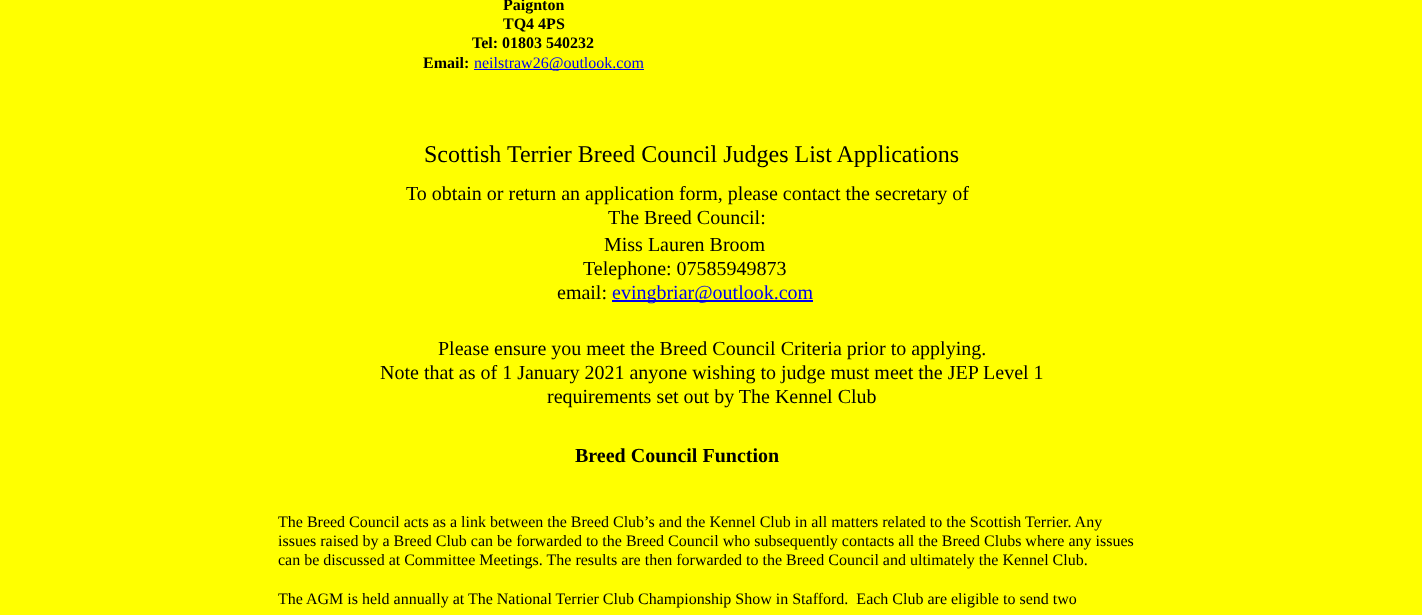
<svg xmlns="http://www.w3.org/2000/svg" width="1422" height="615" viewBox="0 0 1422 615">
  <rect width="100%" height="100%" fill="#ffff00"/>
  <text x="503" y="10" font-family="Liberation Serif" font-size="16" font-weight="bold" fill="#000000">Paignton</text>
  <text x="503" y="29" font-family="Liberation Serif" font-size="16" font-weight="bold" fill="#000000">TQ4 4PS</text>
  <text x="472" y="48" font-family="Liberation Serif" font-size="16" font-weight="bold" fill="#000000">Tel: 01803 540232</text>
  <text x="423" y="68" font-family="Liberation Serif" font-size="16" font-weight="bold" fill="#000000">Email:</text>
  <rect x="474" y="69" width="170" height="1" fill="#0000ee"/>
  <text x="474" y="68" font-family="Liberation Serif" font-size="16" fill="#0000ee">neilstraw26@outlook.com</text>
  <text x="424" y="162" font-family="Liberation Serif" font-size="24" fill="#000000">Scottish Terrier Breed Council Judges List Applications</text>
  <text x="406" y="200" font-family="Liberation Serif" font-size="20" fill="#000000">To obtain or return an application form, please contact the secretary of</text>
  <text x="608" y="224" font-family="Liberation Serif" font-size="20" fill="#000000">The Breed Council:</text>
  <text x="604" y="251" font-family="Liberation Serif" font-size="20" fill="#000000">Miss Lauren Broom</text>
  <text x="583" y="275" font-family="Liberation Serif" font-size="20" fill="#000000">Telephone: 07585949873</text>
  <text x="557" y="299" font-family="Liberation Serif" font-size="20" fill="#000000">email:</text>
  <rect x="612" y="300" width="201" height="2" fill="#0000ee"/>
  <text x="612" y="299" font-family="Liberation Serif" font-size="20" fill="#0000ee">evingbriar@outlook.com</text>
  <text x="438" y="355" font-family="Liberation Serif" font-size="20" fill="#000000">Please ensure you meet the Breed Council Criteria prior to applying.</text>
  <text x="380" y="379" font-family="Liberation Serif" font-size="20" fill="#000000">Note that as of 1 January 2021 anyone wishing to judge must meet the JEP Level 1</text>
  <text x="547" y="403" font-family="Liberation Serif" font-size="20" fill="#000000">requirements set out by The Kennel Club</text>
  <text x="575" y="462" font-family="Liberation Serif" font-size="20" font-weight="bold" fill="#000000">Breed Council Function</text>
  <text x="278" y="527" font-family="Liberation Serif" font-size="16" fill="#000000">The Breed Council acts as a link between the Breed Club’s and the Kennel Club in all matters related to the Scottish Terrier. Any</text>
  <text x="278" y="546" font-family="Liberation Serif" font-size="16" fill="#000000">issues raised by a Breed Club can be forwarded to the Breed Council who subsequently contacts all the Breed Clubs where any issues</text>
  <text x="278" y="565" font-family="Liberation Serif" font-size="16" fill="#000000">can be discussed at Committee Meetings. The results are then forwarded to the Breed Council and ultimately the Kennel Club.</text>
  <text x="278" y="604" font-family="Liberation Serif" font-size="16" fill="#000000" xml:space="preserve">The AGM is held annually at The National Terrier Club Championship Show in Stafford.  Each Club are eligible to send two</text>
</svg>
